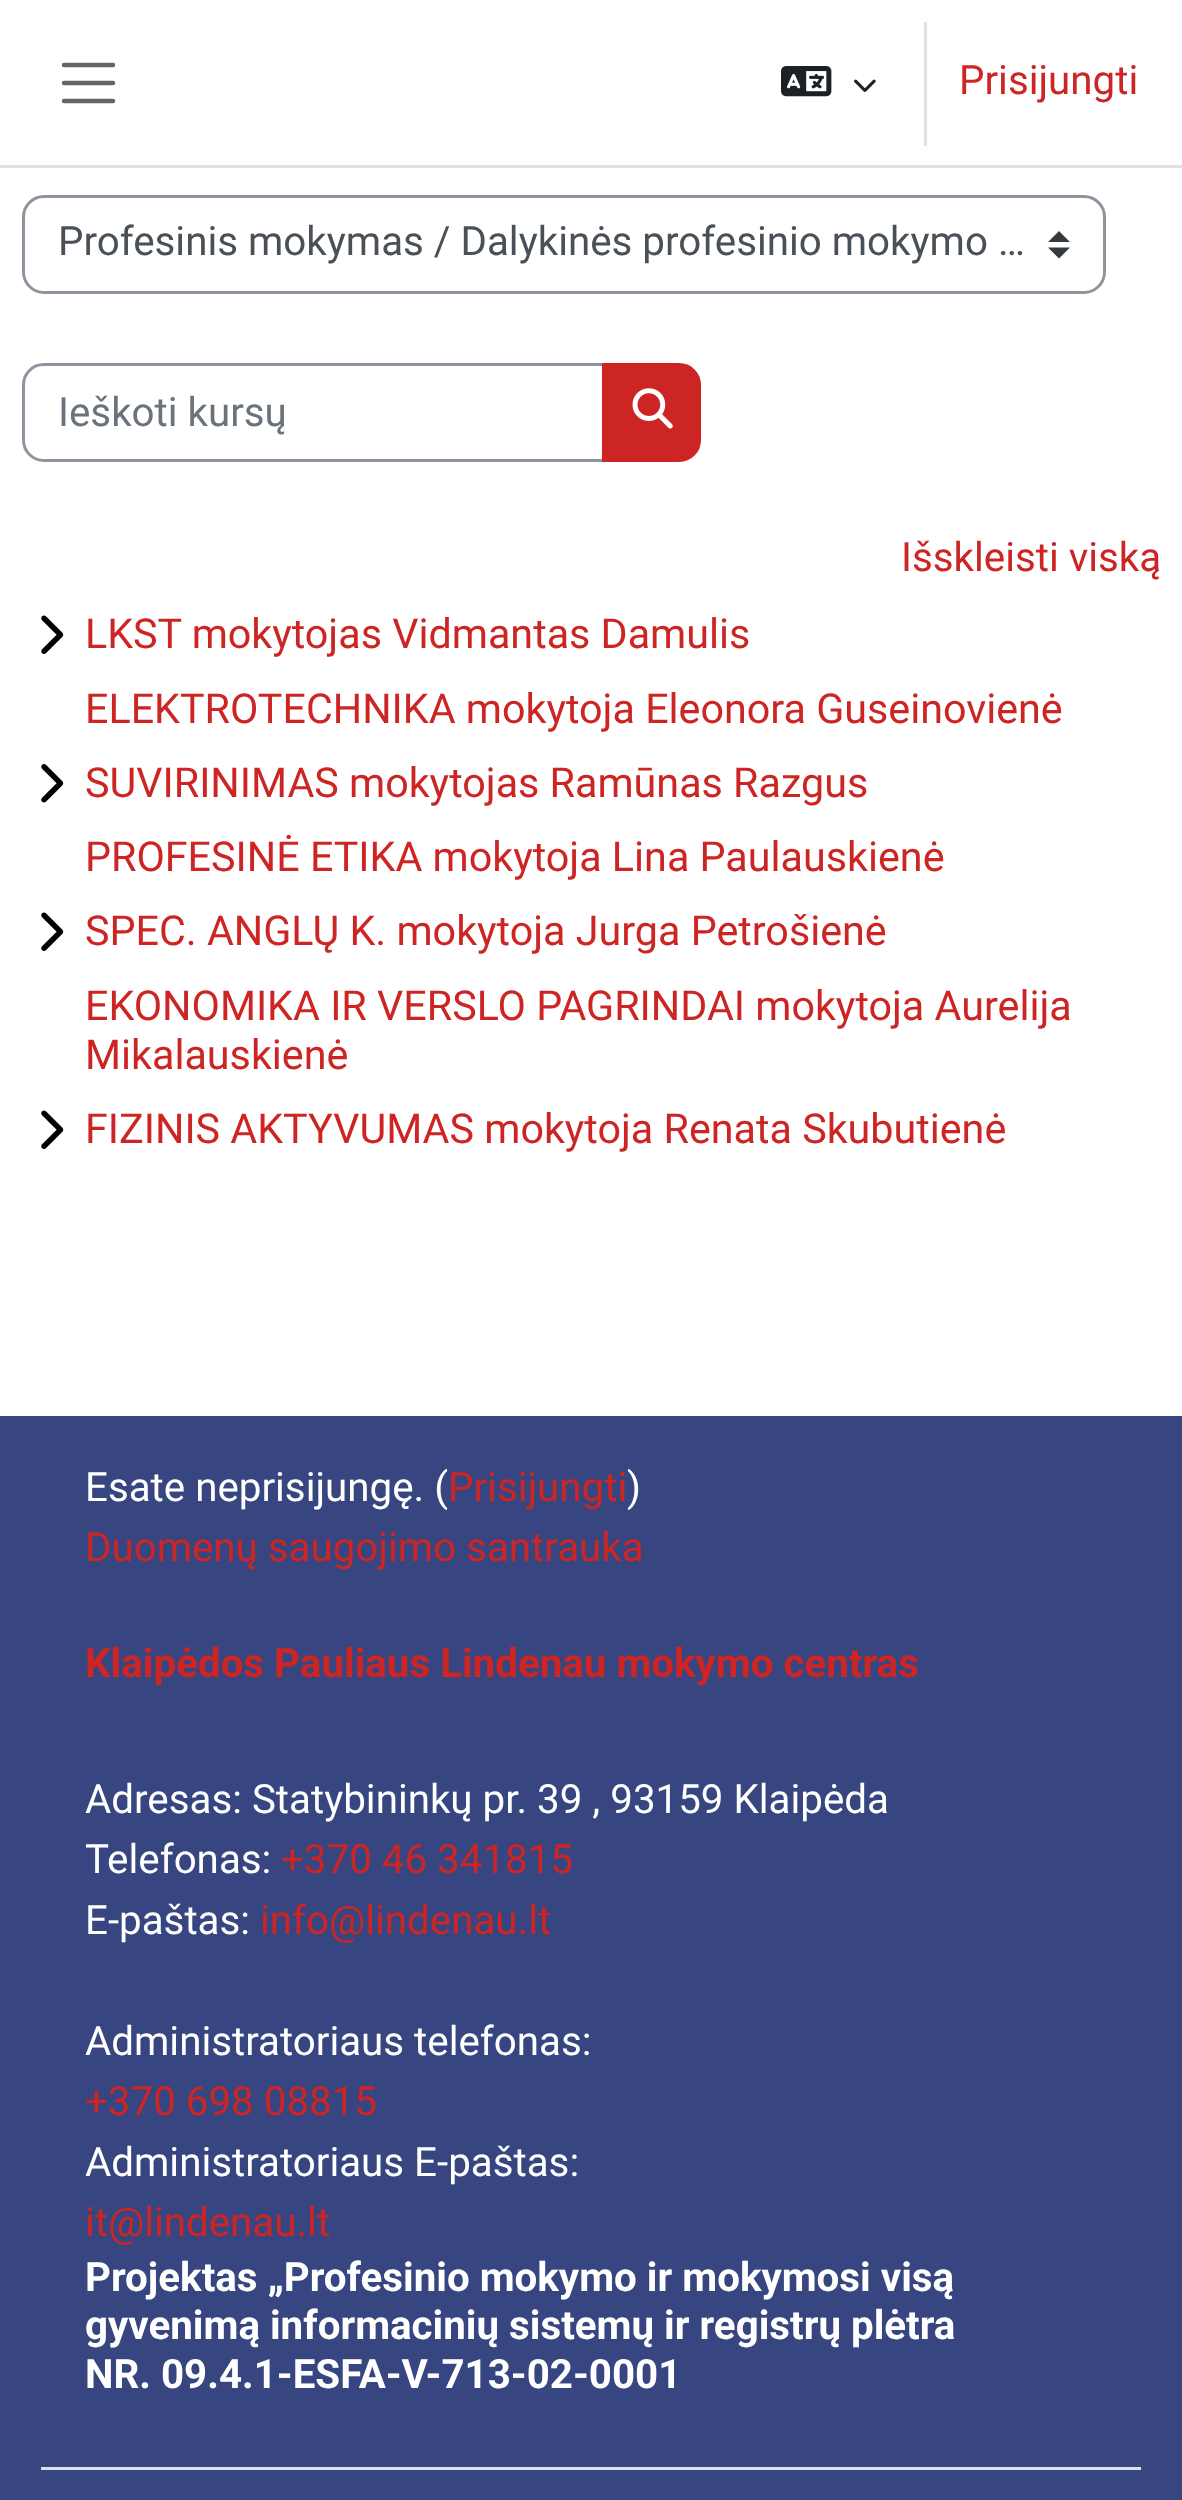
<svg xmlns="http://www.w3.org/2000/svg" width="1182" height="2500" viewBox="0 0 1182 2500">
  <rect width="100%" height="100%" fill="#ffffff"/>
  <rect x="0" y="165" width="1182" height="3" fill="#dee2e6"/>
  <path d="M64 65H113M64 83H113M64 101H113" fill="none" stroke="#666666" stroke-width="4.5" stroke-linecap="round"/>
  <image x="781" y="66" width="51" height="31" href="img1.png"/>
  <image x="854" y="79" width="22" height="13" href="img2.png"/>
  <rect x="924" y="22" width="3" height="124" fill="#dee2e6"/>
  <text x="959" y="94" font-family="Roboto" font-size="40.3" fill="#cc2523">Prisijungti</text>
  <path d="M1059 231L1048 242H1070ZM1059 258.5L1048 247.5H1070Z" fill="#343a40"/>
  <rect x="23.5" y="196.5" width="1081" height="96" rx="20.5" fill="none" stroke="#8f959e" stroke-width="3"/>
  <text x="58" y="255" font-family="Roboto" font-size="40.3" fill="#495057">Profesinis mokymas / Dalykinės profesinio mokymo …</text>
  <path d="M44 364.5H603.5V460.5H44C32.5 460.5 23.5 451.5 23.5 440V385C23.5 373.5 32.5 364.5 44 364.5Z" fill="none" stroke="#8f959e" stroke-width="3"/>
  <text x="58" y="426" font-family="Roboto" font-size="40.3" fill="#6a737b">Ieškoti kursų</text>
  <path d="M603.5 364.5H679C690.5 364.5 699.5 373.5 699.5 385V440C699.5 451.5 690.5 460.5 679 460.5H603.5Z" fill="#cc2523" stroke="#cc2523" stroke-width="3"/>
  <image x="632" y="388" width="41" height="41" href="img3.png"/>
  <text x="901" y="571" font-family="Roboto" font-size="40.3" fill="#cc2523">Išskleisti viską</text>
  <image x="41" y="615" width="23" height="39" href="img4.png"/>
  <text x="85" y="648" font-family="Roboto" font-size="41.25" fill="#cc2523">LKST mokytojas Vidmantas Damulis</text>
  <text x="85" y="723" font-family="Roboto" font-size="41.25" fill="#cc2523">ELEKTROTECHNIKA mokytoja Eleonora Guseinovienė</text>
  <image x="41" y="764" width="23" height="39" href="img5.png"/>
  <text x="85" y="797" font-family="Roboto" font-size="41.25" fill="#cc2523">SUVIRINIMAS mokytojas Ramūnas Razgus</text>
  <text x="85" y="871" font-family="Roboto" font-size="41.25" fill="#cc2523">PROFESINĖ ETIKA mokytoja Lina Paulauskienė</text>
  <image x="41" y="912" width="23" height="39" href="img4.png"/>
  <text x="85" y="945" font-family="Roboto" font-size="41.25" fill="#cc2523">SPEC. ANGLŲ K. mokytoja Jurga Petrošienė</text>
  <text x="85" y="1020" font-family="Roboto" font-size="41.25" fill="#cc2523">EKONOMIKA IR VERSLO PAGRINDAI mokytoja Aurelija</text>
  <text x="85" y="1069" font-family="Roboto" font-size="41.25" fill="#cc2523">Mikalauskienė</text>
  <image x="41" y="1110" width="23" height="39" href="img4.png"/>
  <text x="85" y="1143" font-family="Roboto" font-size="41.25" fill="#cc2523">FIZINIS AKTYVUMAS mokytoja Renata Skubutienė</text>
  <rect x="0" y="1416" width="1182" height="1084" fill="#374680"/>
  <rect x="41" y="2467" width="1100" height="3" fill="#dee2e6"/>
  <text x="85" y="1501" font-family="Roboto" font-size="40.3" fill="#ffffff">Esate neprisijungę. (</text>
  <text x="448" y="1501" font-family="Roboto" font-size="40.3" fill="#cc2523">Prisijungti</text>
  <text x="627" y="1501" font-family="Roboto" font-size="40.3" fill="#ffffff">)</text>
  <text x="85" y="1561" font-family="Roboto" font-size="40.3" fill="#cc2523">Duomenų saugojimo santrauka</text>
  <text x="85" y="1677" font-family="Roboto" font-size="40.3" font-weight="bold" fill="#cc2523">Klaipėdos Pauliaus Lindenau mokymo centras</text>
  <text x="85" y="1813" font-family="Roboto" font-size="40.3" fill="#ffffff">Adresas: Statybininkų pr. 39 , 93159 Klaipėda</text>
  <text x="85" y="1873" font-family="Roboto" font-size="40.3" fill="#ffffff">Telefonas:</text>
  <text x="281" y="1873" font-family="Roboto" font-size="40.3" fill="#cc2523">+370 46 341815</text>
  <text x="85" y="1934" font-family="Roboto" font-size="40.3" fill="#ffffff">E-paštas:</text>
  <text x="260" y="1934" font-family="Roboto" font-size="40.3" fill="#cc2523">info@lindenau.lt</text>
  <text x="85" y="2055" font-family="Roboto" font-size="40.3" fill="#ffffff">Administratoriaus telefonas:</text>
  <text x="85" y="2115" font-family="Roboto" font-size="40.3" fill="#cc2523">+370 698 08815</text>
  <text x="85" y="2176" font-family="Roboto" font-size="40.3" fill="#ffffff">Administratoriaus E-paštas:</text>
  <text x="85" y="2236" font-family="Roboto" font-size="40.3" fill="#cc2523">it@lindenau.lt</text>
  <text x="85" y="2291" font-family="Roboto" font-size="40.3" font-weight="bold" fill="#ffffff">Projektas „Profesinio mokymo ir mokymosi visą</text>
  <text x="85" y="2339" font-family="Roboto" font-size="40.3" font-weight="bold" fill="#ffffff">gyvenimą informacinių sistemų ir registrų plėtra</text>
  <text x="85" y="2388" font-family="Roboto" font-size="40.3" font-weight="bold" fill="#ffffff">NR. 09.4.1-ESFA-V-713-02-0001</text>
</svg>
